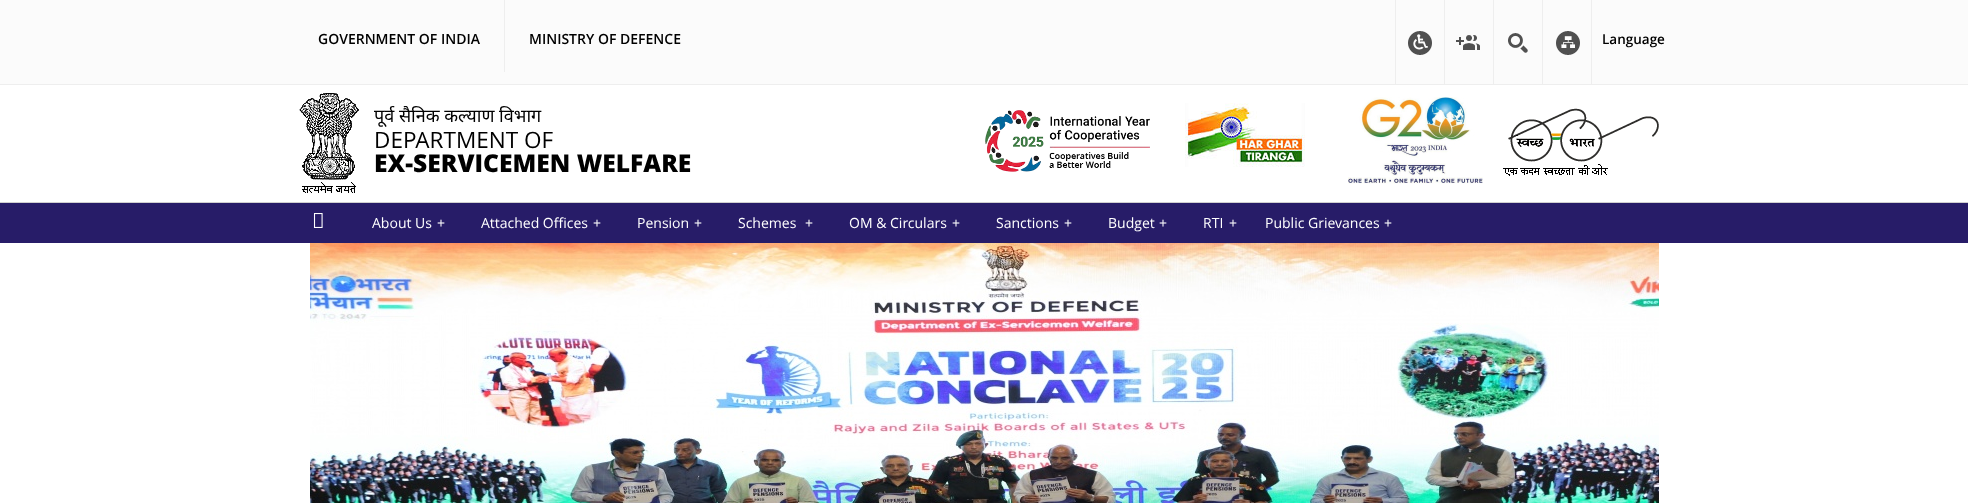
<svg xmlns="http://www.w3.org/2000/svg" width="1968" height="503" viewBox="0 0 1968 503">
  <rect width="100%" height="100%" fill="#ffffff"/>
  <rect x="0" y="0" width="1968" height="84" fill="#fbfbfb"/>
  <rect x="0" y="84" width="1968" height="1" fill="#eeeeee"/>
  <text x="318" y="44" font-family="Open Sans" font-size="14" font-weight="600" fill="#000000">GOVERNMENT OF INDIA</text>
  <rect x="504" y="0" width="1" height="72" fill="#eeeeee"/>
  <text x="529" y="44" font-family="Open Sans" font-size="14" font-weight="600" fill="#000000">MINISTRY OF DEFENCE</text>
  <rect x="1395" y="0" width="1" height="84" fill="#eeeeee"/>
  <image x="1408" y="31" width="24" height="24" href="img1.png"/>
  <rect x="1444" y="0" width="1" height="84" fill="#eeeeee"/>
  <image x="1456" y="35" width="24" height="15" href="img2.png"/>
  <rect x="1493" y="0" width="1" height="84" fill="#eeeeee"/>
  <image x="1508" y="33" width="20" height="20" href="img3.png"/>
  <rect x="1542" y="0" width="1" height="84" fill="#eeeeee"/>
  <image x="1556" y="31" width="24" height="24" href="img4.png"/>
  <rect x="1591" y="0" width="1" height="84" fill="#eeeeee"/>
  <text x="1602" y="44" font-family="Open Sans" font-size="13.5" font-weight="600" fill="#000000">Language</text>
  <rect x="0" y="202" width="1968" height="1" fill="#d0d0d0"/>
  <image x="299" y="93" width="60" height="100" href="img5.png"/>
  <text x="374" y="122" font-family="Noto Sans" font-size="18" fill="#000000">पूर्व सैनिक कल्याण विभाग</text>
  <text x="374" y="148" font-family="Open Sans" font-size="22.5" fill="#000000">DEPARTMENT OF</text>
  <text x="374" y="172" font-family="Open Sans" font-size="24.6" font-weight="800" fill="#000000">EX-SERVICEMEN WELFARE</text>
  <image x="985" y="110" width="165" height="62" href="img6.png"/>
  <image x="1185" y="103" width="120" height="64" href="img7.png"/>
  <image x="1348" y="97" width="135" height="87" href="img8.png"/>
  <image x="1503" y="108" width="156" height="68" href="img9.png"/>
  <rect x="0" y="203" width="1968" height="40" fill="#271c68"/>
  <image x="313" y="213" width="10" height="15" href="img10.png"/>
  <text x="372" y="228" font-family="Open Sans" font-size="14" fill="#ffffff">About Us</text>
  <text x="437" y="228" font-family="Open Sans" font-size="14" fill="#ffffff">+</text>
  <text x="481" y="228" font-family="Open Sans" font-size="14" fill="#ffffff">Attached Offices</text>
  <text x="593" y="228" font-family="Open Sans" font-size="14" fill="#ffffff">+</text>
  <text x="637" y="228" font-family="Open Sans" font-size="14" fill="#ffffff">Pension</text>
  <text x="694" y="228" font-family="Open Sans" font-size="14" fill="#ffffff">+</text>
  <text x="738" y="228" font-family="Open Sans" font-size="14" fill="#ffffff">Schemes</text>
  <text x="805" y="228" font-family="Open Sans" font-size="14" fill="#ffffff">+</text>
  <text x="849" y="228" font-family="Open Sans" font-size="14" fill="#ffffff">OM &amp; Circulars</text>
  <text x="952" y="228" font-family="Open Sans" font-size="14" fill="#ffffff">+</text>
  <text x="996" y="228" font-family="Open Sans" font-size="14" fill="#ffffff">Sanctions</text>
  <text x="1064" y="228" font-family="Open Sans" font-size="14" fill="#ffffff">+</text>
  <text x="1108" y="228" font-family="Open Sans" font-size="14" fill="#ffffff">Budget</text>
  <text x="1159" y="228" font-family="Open Sans" font-size="14" fill="#ffffff">+</text>
  <text x="1203" y="228" font-family="Open Sans" font-size="14" fill="#ffffff">RTI</text>
  <text x="1229" y="228" font-family="Open Sans" font-size="14" fill="#ffffff">+</text>
  <text x="1265" y="228" font-family="Open Sans" font-size="14" fill="#ffffff">Public Grievances</text>
  <text x="1384" y="228" font-family="Open Sans" font-size="14" fill="#ffffff">+</text>
  <image x="310" y="243" width="1349" height="260" href="img11.png"/>
</svg>
